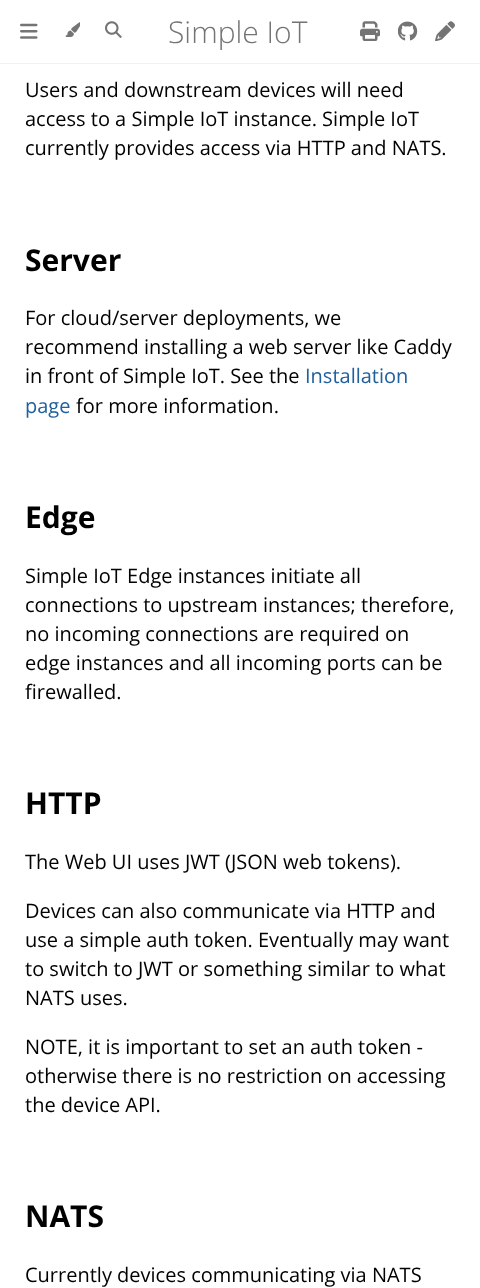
<svg xmlns="http://www.w3.org/2000/svg" width="480" height="1288" viewBox="0 0 480 1288">
  <rect width="100%" height="100%" fill="#ffffff"/>
  <rect x="0" y="63" width="480" height="1" fill="#f2f2f2"/>
  <image x="20" y="23" width="18" height="16" href="img1.png"/>
  <image x="65" y="22" width="15" height="15" href="img2.png"/>
  <image x="105" y="21" width="17" height="17" href="img3.png"/>
  <text x="168" y="43" font-family="Open Sans" font-size="30" font-weight="300" fill="#747474">Simple IoT</text>
  <image x="360" y="21" width="20" height="20" href="img4.png"/>
  <image x="398" y="21" width="20" height="20" href="img5.png"/>
  <image x="435" y="21" width="20" height="20" href="img6.png"/>
  <text x="25" y="97" font-family="Open Sans" font-size="20" fill="#000000">Users and downstream devices will need</text>
  <text x="25" y="126" font-family="Open Sans" font-size="20" fill="#000000">access to a Simple IoT instance. Simple IoT</text>
  <text x="25" y="155" font-family="Open Sans" font-size="20" fill="#000000">currently provides access via HTTP and NATS.</text>
  <text x="25" y="271" font-family="Open Sans" font-size="30" font-weight="bold" fill="#000000">Server</text>
  <text x="25" y="325" font-family="Open Sans" font-size="20" fill="#000000">For cloud/server deployments, we</text>
  <text x="25" y="354" font-family="Open Sans" font-size="20" fill="#000000">recommend installing a web server like Caddy</text>
  <text x="25" y="383" font-family="Open Sans" font-size="20" fill="#000000">in front of Simple IoT. See the</text>
  <text x="305" y="383" font-family="Open Sans" font-size="20" fill="#20609f">Installation</text>
  <text x="25" y="413" font-family="Open Sans" font-size="20" fill="#20609f">page</text>
  <text x="76" y="413" font-family="Open Sans" font-size="20" fill="#000000">for more information.</text>
  <text x="25" y="528" font-family="Open Sans" font-size="30" font-weight="bold" fill="#000000">Edge</text>
  <text x="25" y="583" font-family="Open Sans" font-size="20" fill="#000000">Simple IoT Edge instances initiate all</text>
  <text x="25" y="612" font-family="Open Sans" font-size="20" fill="#000000">connections to upstream instances; therefore,</text>
  <text x="25" y="641" font-family="Open Sans" font-size="20" fill="#000000">no incoming connections are required on</text>
  <text x="25" y="670" font-family="Open Sans" font-size="20" fill="#000000">edge instances and all incoming ports can be</text>
  <text x="25" y="699" font-family="Open Sans" font-size="20" fill="#000000">firewalled.</text>
  <text x="25" y="814" font-family="Open Sans" font-size="30" font-weight="bold" fill="#000000">HTTP</text>
  <text x="25" y="869" font-family="Open Sans" font-size="20" fill="#000000">The Web UI uses JWT (JSON web tokens).</text>
  <text x="25" y="918" font-family="Open Sans" font-size="20" fill="#000000">Devices can also communicate via HTTP and</text>
  <text x="25" y="947" font-family="Open Sans" font-size="20" fill="#000000">use a simple auth token. Eventually may want</text>
  <text x="25" y="976" font-family="Open Sans" font-size="20" fill="#000000">to switch to JWT or something similar to what</text>
  <text x="25" y="1005" font-family="Open Sans" font-size="20" fill="#000000">NATS uses.</text>
  <text x="25" y="1054" font-family="Open Sans" font-size="20" fill="#000000">NOTE, it is important to set an auth token -</text>
  <text x="25" y="1083" font-family="Open Sans" font-size="20" fill="#000000">otherwise there is no restriction on accessing</text>
  <text x="25" y="1112" font-family="Open Sans" font-size="20" fill="#000000">the device API.</text>
  <text x="25" y="1227" font-family="Open Sans" font-size="30" font-weight="bold" fill="#000000">NATS</text>
  <text x="25" y="1282" font-family="Open Sans" font-size="20" fill="#000000">Currently devices communicating via NATS</text>
</svg>
